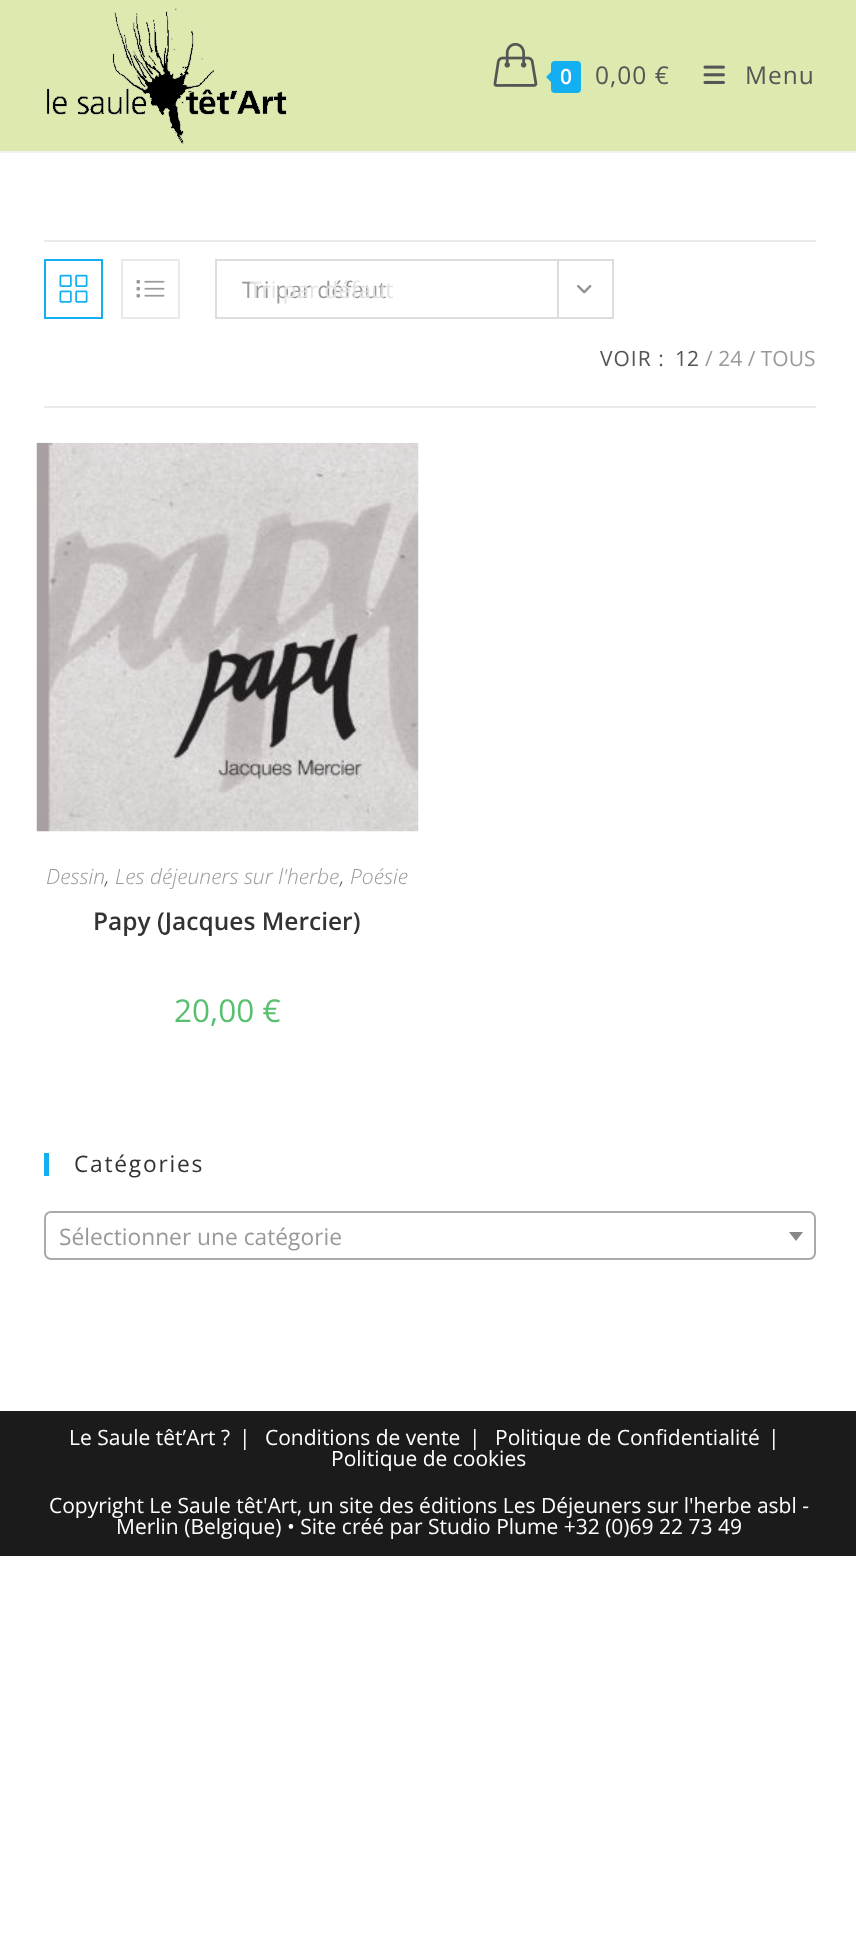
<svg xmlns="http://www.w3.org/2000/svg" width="856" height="1956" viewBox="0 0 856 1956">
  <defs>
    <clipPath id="clip1"><rect x="250" y="271" width="308" height="35"/></clipPath>
  </defs>
  <rect width="100%" height="100%" fill="#ffffff"/>
  <rect x="0" y="0" width="856" height="151" fill="#ddeaaf"/>
  <rect x="0" y="151" width="856" height="2" fill="#f1f1f1"/>
  <image x="46" y="8" width="241" height="136" href="img1.png"/>
  <image x="493" y="42" width="45" height="45" href="img2.png"/>
  <rect x="551" y="61" width="30" height="32" rx="4" fill="#13aff0"/>
  <path d="M555 68V86L546 77Z" fill="#13aff0"/>
  <text x="560" y="84" font-family="Open Sans" font-size="21" font-weight="600" letter-spacing="1" fill="#ffffff">0</text>
  <text x="595" y="84" font-family="Open Sans" font-size="24.5" letter-spacing="1" fill="#555555">0,00 €</text>
  <image x="703" y="65" width="22" height="19" href="img3.png"/>
  <text x="745" y="84" font-family="Open Sans" font-size="24.5" letter-spacing="1" fill="#555555">Menu</text>
  <rect x="44" y="240" width="772" height="2" fill="#eaeaea"/>
  <rect x="44" y="406" width="772" height="2" fill="#eaeaea"/>
  <rect x="45" y="260" width="57" height="58" fill="none" stroke="#13aff0" stroke-width="2"/>
  <image x="59" y="274" width="29" height="29" href="img4.png"/>
  <rect x="122" y="260" width="57" height="58" fill="none" stroke="#eaeaea" stroke-width="2"/>
  <image x="136" y="280" width="29" height="18" href="img5.png"/>
  <rect x="216" y="260" width="397" height="58" fill="none" stroke="#dddddd" stroke-width="2"/>
  <text x="242" y="298" font-family="Open Sans" font-size="22.75" fill="#999999">Tri par défaut</text>
  <rect x="557" y="261" width="2" height="56" fill="#dddddd"/>
  <image x="577" y="285" width="15" height="9" href="img6.png"/>
  <g clip-path="url(#clip1)">
    <text x="249" y="298" font-family="Open Sans" font-size="22.75" fill="#e4e4e4">Tri par défaut</text>
  </g>
  <text x="600" y="366" font-family="Open Sans" font-size="21" letter-spacing="1" fill="#555555">VOIR :</text>
  <text x="675" y="366" font-family="Open Sans" font-size="21" fill="#555555">12</text>
  <text x="705" y="366" font-family="Open Sans" font-size="21" fill="#999999">/ 24 / TOUS</text>
  <image x="36" y="442" width="383" height="390" href="img7.png"/>
  <text x="46" y="884" font-family="Open Sans" font-size="21" font-weight="300" font-style="italic" fill="#999999">Dessin</text>
  <text x="105" y="884" font-family="Open Sans" font-size="21" font-weight="300" font-style="italic" fill="#4a4a4a">,</text>
  <text x="115" y="884" font-family="Open Sans" font-size="21" font-weight="300" font-style="italic" fill="#999999">Les déjeuners sur l'herbe</text>
  <text x="340" y="884" font-family="Open Sans" font-size="21" font-weight="300" font-style="italic" fill="#4a4a4a">,</text>
  <text x="350" y="884" font-family="Open Sans" font-size="21" font-weight="300" font-style="italic" fill="#999999">Poésie</text>
  <text x="93" y="930" font-family="Open Sans" font-size="24.5" font-weight="600" fill="#333333">Papy (Jacques Mercier)</text>
  <text x="174" y="1022" font-family="Open Sans" font-size="31.5" fill="#57bf6d">20,00 €</text>
  <rect x="44" y="1153" width="5" height="23" fill="#13aff0"/>
  <text x="74" y="1172" font-family="Open Sans" font-size="22.75" letter-spacing="1.75" fill="#333333">Catégories</text>
  <rect x="45" y="1212" width="770" height="47" rx="6" fill="none" stroke="#aaaaaa" stroke-width="2"/>
  <text x="59" y="1245" font-family="Open Sans" font-size="22.75" fill="#999999">Sélectionner une catégorie</text>
  <path d="M789 1232H803L796 1241Z" fill="#888888"/>
  <rect x="0" y="1411" width="856" height="145" fill="#1b1b1b"/>
  <text x="69" y="1445" font-family="Open Sans" font-size="21" fill="#ffffff">Le Saule têt’Art ?</text>
  <text x="239" y="1445" font-family="Open Sans" font-size="21" fill="#ffffff">|</text>
  <text x="265" y="1445" font-family="Open Sans" font-size="21" fill="#ffffff">Conditions de vente</text>
  <text x="469" y="1445" font-family="Open Sans" font-size="21" fill="#ffffff">|</text>
  <text x="495" y="1445" font-family="Open Sans" font-size="21" fill="#ffffff">Politique de Confidentialité</text>
  <text x="768" y="1445" font-family="Open Sans" font-size="21" fill="#ffffff">|</text>
  <text x="331" y="1466" font-family="Open Sans" font-size="21" fill="#ffffff">Politique de cookies</text>
  <text x="49" y="1513" font-family="Open Sans" font-size="21" fill="#ffffff">Copyright Le Saule têt'Art, un site des éditions Les Déjeuners sur l'herbe asbl -</text>
  <text x="116" y="1534" font-family="Open Sans" font-size="21" fill="#ffffff">Merlin (Belgique) • Site créé par Studio Plume +32 (0)69 22 73 49</text>
</svg>
